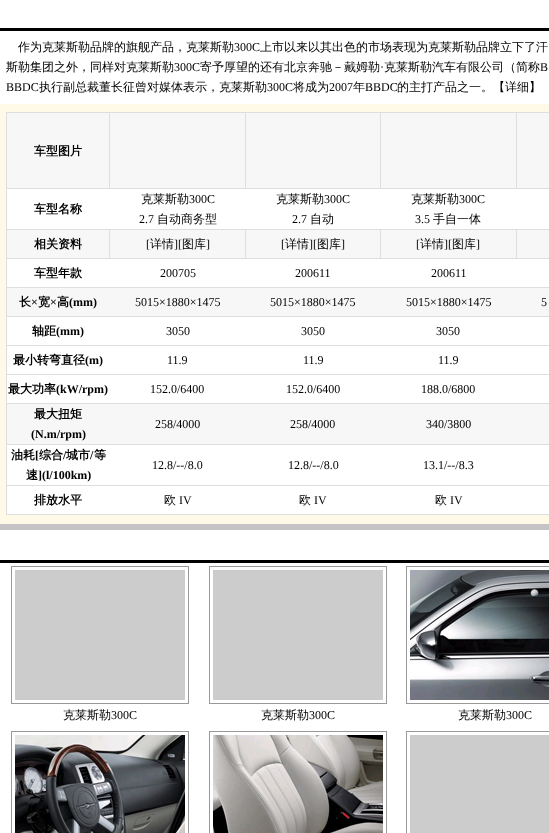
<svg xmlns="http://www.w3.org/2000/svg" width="549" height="833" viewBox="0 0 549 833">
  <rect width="100%" height="100%" fill="#ffffff"/>
  <rect x="0" y="28" width="549" height="3" fill="#000000"/>
  <text x="18" y="51" font-family="WenQuanYi Zen Hei" font-size="12" font-weight="500" fill="#000000">作为克莱斯勒品牌的旗舰产品，克莱斯勒</text>
  <text x="234" y="51" font-family="Liberation Serif" font-size="12" fill="#000000">300C</text>
  <text x="260" y="51" font-family="WenQuanYi Zen Hei" font-size="12" font-weight="500" fill="#000000">上市以来以其出色的市场表现为克莱斯勒品牌立下了汗</text>
  <text x="6" y="71" font-family="WenQuanYi Zen Hei" font-size="12" font-weight="500" fill="#000000">斯勒集团之外，同样对克莱斯勒</text>
  <text x="174" y="71" font-family="Liberation Serif" font-size="12" fill="#000000">300C</text>
  <text x="200" y="71" font-family="WenQuanYi Zen Hei" font-size="12" font-weight="500" fill="#000000">寄予厚望的还有北京奔驰－戴姆勒</text>
  <text x="380" y="71" font-family="Liberation Serif" font-size="12" fill="#000000">·</text>
  <text x="384" y="71" font-family="WenQuanYi Zen Hei" font-size="12" font-weight="500" fill="#000000">克莱斯勒汽车有限公司（简称</text>
  <text x="540" y="71" font-family="Liberation Serif" font-size="12" fill="#000000">B</text>
  <text x="6" y="91" font-family="Liberation Serif" font-size="12" fill="#000000">BBDC</text>
  <text x="39" y="91" font-family="WenQuanYi Zen Hei" font-size="12" font-weight="500" fill="#000000">执行副总裁董长征曾对媒体表示，克莱斯勒</text>
  <text x="267" y="91" font-family="Liberation Serif" font-size="12" fill="#000000">300C</text>
  <text x="293" y="91" font-family="WenQuanYi Zen Hei" font-size="12" font-weight="500" fill="#000000">将成为</text>
  <text x="329" y="91" font-family="Liberation Serif" font-size="12" fill="#000000">2007</text>
  <text x="353" y="91" font-family="WenQuanYi Zen Hei" font-size="12" font-weight="500" fill="#000000">年</text>
  <text x="365" y="91" font-family="Liberation Serif" font-size="12" fill="#000000">BBDC</text>
  <text x="397" y="91" font-family="WenQuanYi Zen Hei" font-size="12" font-weight="500" fill="#000000">的主打产品之一。【详细】</text>
  <rect x="0" y="104" width="549" height="420" fill="#fff9e8"/>
  <rect x="6" y="112" width="543" height="403" fill="#dedede"/>
  <rect x="7" y="113" width="102" height="75" fill="#f7f7f7"/>
  <text x="34" y="155" font-family="WenQuanYi Zen Hei" font-size="12" font-weight="bold" fill="#000000">车型图片</text>
  <rect x="110" y="113" width="135" height="75" fill="#f7f7f7"/>
  <rect x="246" y="113" width="134" height="75" fill="#f7f7f7"/>
  <rect x="381" y="113" width="135" height="75" fill="#f7f7f7"/>
  <rect x="517" y="113" width="32" height="75" fill="#f7f7f7"/>
  <rect x="7" y="189" width="542" height="40" fill="#ffffff"/>
  <text x="34" y="213" font-family="WenQuanYi Zen Hei" font-size="12" font-weight="bold" fill="#000000">车型名称</text>
  <text x="141" y="203" font-family="WenQuanYi Zen Hei" font-size="12" font-weight="500" fill="#000000">克莱斯勒</text>
  <text x="189" y="203" font-family="Liberation Serif" font-size="12" fill="#000000">300C</text>
  <text x="139" y="223" font-family="Liberation Serif" font-size="12" fill="#000000">2.7</text>
  <text x="157" y="223" font-family="WenQuanYi Zen Hei" font-size="12" font-weight="500" fill="#000000">自动商务型</text>
  <text x="276" y="203" font-family="WenQuanYi Zen Hei" font-size="12" font-weight="500" fill="#000000">克莱斯勒</text>
  <text x="324" y="203" font-family="Liberation Serif" font-size="12" fill="#000000">300C</text>
  <text x="292" y="223" font-family="Liberation Serif" font-size="12" fill="#000000">2.7</text>
  <text x="310" y="223" font-family="WenQuanYi Zen Hei" font-size="12" font-weight="500" fill="#000000">自动</text>
  <text x="411" y="203" font-family="WenQuanYi Zen Hei" font-size="12" font-weight="500" fill="#000000">克莱斯勒</text>
  <text x="459" y="203" font-family="Liberation Serif" font-size="12" fill="#000000">300C</text>
  <text x="415" y="223" font-family="Liberation Serif" font-size="12" fill="#000000">3.5</text>
  <text x="433" y="223" font-family="WenQuanYi Zen Hei" font-size="12" font-weight="500" fill="#000000">手自一体</text>
  <rect x="7" y="230" width="102" height="28" fill="#f7f7f7"/>
  <text x="34" y="248" font-family="WenQuanYi Zen Hei" font-size="12" font-weight="bold" fill="#000000">相关资料</text>
  <rect x="110" y="230" width="135" height="28" fill="#f7f7f7"/>
  <text x="146" y="248" font-family="Liberation Serif" font-size="12" fill="#000000">[</text>
  <text x="150" y="248" font-family="WenQuanYi Zen Hei" font-size="12" font-weight="500" fill="#000000">详情</text>
  <text x="174" y="248" font-family="Liberation Serif" font-size="12" fill="#000000">][</text>
  <text x="182" y="248" font-family="WenQuanYi Zen Hei" font-size="12" font-weight="500" fill="#000000">图库</text>
  <text x="206" y="248" font-family="Liberation Serif" font-size="12" fill="#000000">]</text>
  <rect x="246" y="230" width="134" height="28" fill="#f7f7f7"/>
  <text x="281" y="248" font-family="Liberation Serif" font-size="12" fill="#000000">[</text>
  <text x="285" y="248" font-family="WenQuanYi Zen Hei" font-size="12" font-weight="500" fill="#000000">详情</text>
  <text x="309" y="248" font-family="Liberation Serif" font-size="12" fill="#000000">][</text>
  <text x="317" y="248" font-family="WenQuanYi Zen Hei" font-size="12" font-weight="500" fill="#000000">图库</text>
  <text x="341" y="248" font-family="Liberation Serif" font-size="12" fill="#000000">]</text>
  <rect x="381" y="230" width="135" height="28" fill="#f7f7f7"/>
  <text x="416" y="248" font-family="Liberation Serif" font-size="12" fill="#000000">[</text>
  <text x="420" y="248" font-family="WenQuanYi Zen Hei" font-size="12" font-weight="500" fill="#000000">详情</text>
  <text x="444" y="248" font-family="Liberation Serif" font-size="12" fill="#000000">][</text>
  <text x="452" y="248" font-family="WenQuanYi Zen Hei" font-size="12" font-weight="500" fill="#000000">图库</text>
  <text x="476" y="248" font-family="Liberation Serif" font-size="12" fill="#000000">]</text>
  <rect x="517" y="230" width="32" height="28" fill="#f7f7f7"/>
  <rect x="7" y="259" width="542" height="28" fill="#ffffff"/>
  <text x="34" y="277" font-family="WenQuanYi Zen Hei" font-size="12" font-weight="bold" fill="#000000">车型年款</text>
  <text x="160" y="277" font-family="Liberation Serif" font-size="12" fill="#000000">200705</text>
  <text x="295" y="277" font-family="Liberation Serif" font-size="12" fill="#000000">200611</text>
  <text x="431" y="277" font-family="Liberation Serif" font-size="12" fill="#000000">200611</text>
  <rect x="7" y="288" width="542" height="28" fill="#f7f7f7"/>
  <text x="19" y="306" font-family="WenQuanYi Zen Hei" font-size="12" font-weight="bold" fill="#000000">长</text>
  <text x="31" y="306" font-family="Liberation Serif" font-size="12" font-weight="bold" fill="#000000">×</text>
  <text x="38" y="306" font-family="WenQuanYi Zen Hei" font-size="12" font-weight="bold" fill="#000000">宽</text>
  <text x="50" y="306" font-family="Liberation Serif" font-size="12" font-weight="bold" fill="#000000">×</text>
  <text x="57" y="306" font-family="WenQuanYi Zen Hei" font-size="12" font-weight="bold" fill="#000000">高</text>
  <text x="69" y="306" font-family="Liberation Serif" font-size="12" font-weight="bold" fill="#000000">(mm)</text>
  <text x="135" y="306" font-family="Liberation Serif" font-size="12" fill="#000000">5015×1880×1475</text>
  <text x="270" y="306" font-family="Liberation Serif" font-size="12" fill="#000000">5015×1880×1475</text>
  <text x="406" y="306" font-family="Liberation Serif" font-size="12" fill="#000000">5015×1880×1475</text>
  <text x="541" y="306" font-family="Liberation Serif" font-size="12" fill="#000000">5</text>
  <rect x="7" y="317" width="542" height="28" fill="#ffffff"/>
  <text x="32" y="335" font-family="WenQuanYi Zen Hei" font-size="12" font-weight="bold" fill="#000000">轴距</text>
  <text x="56" y="335" font-family="Liberation Serif" font-size="12" font-weight="bold" fill="#000000">(mm)</text>
  <text x="166" y="335" font-family="Liberation Serif" font-size="12" fill="#000000">3050</text>
  <text x="301" y="335" font-family="Liberation Serif" font-size="12" fill="#000000">3050</text>
  <text x="436" y="335" font-family="Liberation Serif" font-size="12" fill="#000000">3050</text>
  <rect x="7" y="346" width="542" height="28" fill="#ffffff"/>
  <text x="13" y="364" font-family="WenQuanYi Zen Hei" font-size="12" font-weight="bold" fill="#000000">最小转弯直径</text>
  <text x="85" y="364" font-family="Liberation Serif" font-size="12" font-weight="bold" fill="#000000">(m)</text>
  <text x="167" y="364" font-family="Liberation Serif" font-size="12" fill="#000000">11.9</text>
  <text x="303" y="364" font-family="Liberation Serif" font-size="12" fill="#000000">11.9</text>
  <text x="438" y="364" font-family="Liberation Serif" font-size="12" fill="#000000">11.9</text>
  <rect x="7" y="375" width="542" height="28" fill="#ffffff"/>
  <text x="8" y="393" font-family="WenQuanYi Zen Hei" font-size="12" font-weight="bold" fill="#000000">最大功率</text>
  <text x="56" y="393" font-family="Liberation Serif" font-size="12" font-weight="bold" fill="#000000">(kW/rpm)</text>
  <text x="150" y="393" font-family="Liberation Serif" font-size="12" fill="#000000">152.0/6400</text>
  <text x="286" y="393" font-family="Liberation Serif" font-size="12" fill="#000000">152.0/6400</text>
  <text x="421" y="393" font-family="Liberation Serif" font-size="12" fill="#000000">188.0/6800</text>
  <rect x="7" y="404" width="542" height="40" fill="#f7f7f7"/>
  <text x="34" y="418" font-family="WenQuanYi Zen Hei" font-size="12" font-weight="bold" fill="#000000">最大扭矩</text>
  <text x="31" y="438" font-family="Liberation Serif" font-size="12" font-weight="bold" fill="#000000">(N.m/rpm)</text>
  <text x="155" y="428" font-family="Liberation Serif" font-size="12" fill="#000000">258/4000</text>
  <text x="290" y="428" font-family="Liberation Serif" font-size="12" fill="#000000">258/4000</text>
  <text x="426" y="428" font-family="Liberation Serif" font-size="12" fill="#000000">340/3800</text>
  <rect x="7" y="445" width="542" height="40" fill="#ffffff"/>
  <text x="11" y="459" font-family="WenQuanYi Zen Hei" font-size="12" font-weight="bold" fill="#000000">油耗</text>
  <text x="35" y="459" font-family="Liberation Serif" font-size="12" font-weight="bold" fill="#000000">[</text>
  <text x="39" y="459" font-family="WenQuanYi Zen Hei" font-size="12" font-weight="bold" fill="#000000">综合</text>
  <text x="63" y="459" font-family="Liberation Serif" font-size="12" font-weight="bold" fill="#000000">/</text>
  <text x="66" y="459" font-family="WenQuanYi Zen Hei" font-size="12" font-weight="bold" fill="#000000">城市</text>
  <text x="90" y="459" font-family="Liberation Serif" font-size="12" font-weight="bold" fill="#000000">/</text>
  <text x="94" y="459" font-family="WenQuanYi Zen Hei" font-size="12" font-weight="bold" fill="#000000">等</text>
  <text x="26" y="479" font-family="WenQuanYi Zen Hei" font-size="12" font-weight="bold" fill="#000000">速</text>
  <text x="38" y="479" font-family="Liberation Serif" font-size="12" font-weight="bold" fill="#000000">](l/100km)</text>
  <text x="152" y="469" font-family="Liberation Serif" font-size="12" fill="#000000">12.8/--/8.0</text>
  <text x="288" y="469" font-family="Liberation Serif" font-size="12" fill="#000000">12.8/--/8.0</text>
  <text x="423" y="469" font-family="Liberation Serif" font-size="12" fill="#000000">13.1/--/8.3</text>
  <rect x="7" y="486" width="542" height="28" fill="#ffffff"/>
  <text x="34" y="504" font-family="WenQuanYi Zen Hei" font-size="12" font-weight="bold" fill="#000000">排放水平</text>
  <text x="164" y="504" font-family="WenQuanYi Zen Hei" font-size="12" font-weight="500" fill="#000000">欧</text>
  <text x="179" y="504" font-family="Liberation Serif" font-size="12" fill="#000000">IV</text>
  <text x="299" y="504" font-family="WenQuanYi Zen Hei" font-size="12" font-weight="500" fill="#000000">欧</text>
  <text x="314" y="504" font-family="Liberation Serif" font-size="12" fill="#000000">IV</text>
  <text x="435" y="504" font-family="WenQuanYi Zen Hei" font-size="12" font-weight="500" fill="#000000">欧</text>
  <text x="450" y="504" font-family="Liberation Serif" font-size="12" fill="#000000">IV</text>
  <rect x="0" y="524" width="549" height="6" fill="#c6c3c6"/>
  <rect x="0" y="560" width="549" height="3" fill="#000000"/>
  <rect x="11" y="566" width="178" height="138" fill="#999999"/>
  <rect x="12" y="567" width="176" height="136" fill="#ffffff"/>
  <rect x="15" y="570" width="170" height="130" fill="#cccccc"/>
  <text x="63" y="719" font-family="WenQuanYi Zen Hei" font-size="12" font-weight="500" fill="#000000">克莱斯勒</text>
  <text x="111" y="719" font-family="Liberation Serif" font-size="12" fill="#000000">300C</text>
  <rect x="209" y="566" width="178" height="138" fill="#999999"/>
  <rect x="210" y="567" width="176" height="136" fill="#ffffff"/>
  <rect x="213" y="570" width="170" height="130" fill="#cccccc"/>
  <text x="261" y="719" font-family="WenQuanYi Zen Hei" font-size="12" font-weight="500" fill="#000000">克莱斯勒</text>
  <text x="309" y="719" font-family="Liberation Serif" font-size="12" fill="#000000">300C</text>
  <rect x="406" y="566" width="143" height="138" fill="#999999"/>
  <rect x="407" y="567" width="142" height="136" fill="#ffffff"/>
  <image x="410" y="570" width="139" height="130" href="img1.png"/>
  <text x="458" y="719" font-family="WenQuanYi Zen Hei" font-size="12" font-weight="500" fill="#000000">克莱斯勒</text>
  <text x="506" y="719" font-family="Liberation Serif" font-size="12" fill="#000000">300C</text>
  <rect x="11" y="731" width="178" height="102" fill="#999999"/>
  <rect x="12" y="732" width="176" height="101" fill="#ffffff"/>
  <image x="15" y="735" width="170" height="98" href="img2.png"/>
  <rect x="209" y="731" width="178" height="102" fill="#999999"/>
  <rect x="210" y="732" width="176" height="101" fill="#ffffff"/>
  <image x="213" y="735" width="170" height="98" href="img3.png"/>
  <rect x="406" y="731" width="143" height="102" fill="#999999"/>
  <rect x="407" y="732" width="142" height="101" fill="#ffffff"/>
  <rect x="410" y="735" width="139" height="98" fill="#cccccc"/>
</svg>
